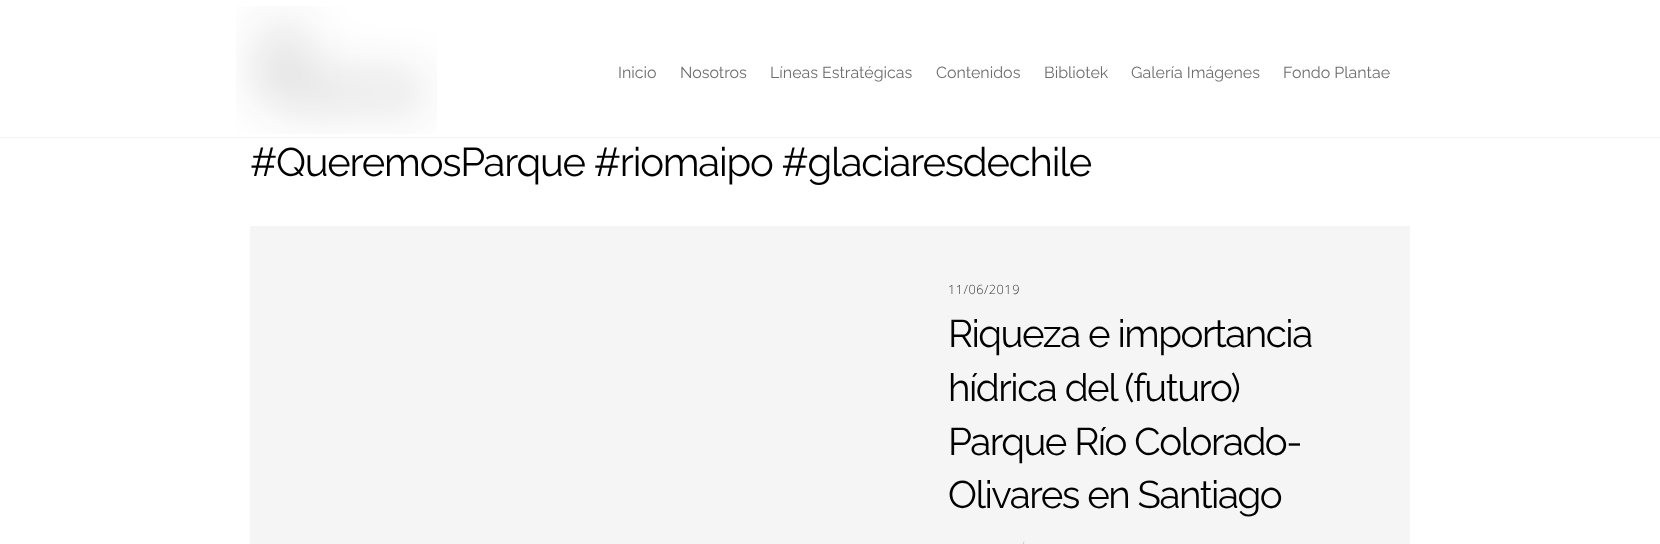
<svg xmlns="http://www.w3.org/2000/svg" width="1660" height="544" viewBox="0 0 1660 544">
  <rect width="100%" height="100%" fill="#ffffff"/>
  <rect x="0" y="137" width="1660" height="1" fill="#f2f2f2"/>
  <image x="236" y="6" width="201" height="128" href="img1.png"/>
  <text x="618" y="78" font-family="Raleway" font-size="16" font-weight="100" fill="#6e6e6e">Inicio</text>
  <text x="680" y="78" font-family="Raleway" font-size="16" font-weight="100" fill="#6e6e6e">Nosotros</text>
  <text x="770" y="78" font-family="Raleway" font-size="16" font-weight="100" fill="#6e6e6e">Líneas Estratégicas</text>
  <text x="936" y="78" font-family="Raleway" font-size="16" font-weight="100" fill="#6e6e6e">Contenidos</text>
  <text x="1044" y="78" font-family="Raleway" font-size="16" font-weight="100" fill="#6e6e6e">Bibliotek</text>
  <text x="1131" y="78" font-family="Raleway" font-size="16" font-weight="100" fill="#6e6e6e">Galería Imágenes</text>
  <text x="1283" y="78" font-family="Raleway" font-size="16" font-weight="100" fill="#6e6e6e">Fondo Plantae</text>
  <text x="250" y="176" font-family="Raleway" font-size="40" font-weight="100" letter-spacing="-1.2" fill="#000000">#QueremosParque #riomaipo #glaciaresdechile</text>
  <rect x="250" y="226" width="1160" height="318" fill="#f5f5f5"/>
  <text x="948" y="294" font-family="Open Sans" font-size="12.75" font-weight="300" letter-spacing="0.5" fill="#333333">11/06/2019</text>
  <text x="948" y="347" font-family="Raleway" font-size="38.5" font-weight="100" letter-spacing="-1.5" fill="#000000">Riqueza e importancia</text>
  <text x="948" y="401" font-family="Raleway" font-size="38.5" font-weight="100" letter-spacing="-1.5" fill="#000000">hídrica del (futuro)</text>
  <text x="948" y="455" font-family="Raleway" font-size="38.5" font-weight="100" letter-spacing="-1.5" fill="#000000">Parque Río Colorado-</text>
  <text x="948" y="508" font-family="Raleway" font-size="38.5" font-weight="100" letter-spacing="-1.5" fill="#000000">Olivares en Santiago</text>
  <path d="M1023.5 541.5H1024.5L1019.5 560H1018.5Z" fill="#cecece"/>
</svg>
